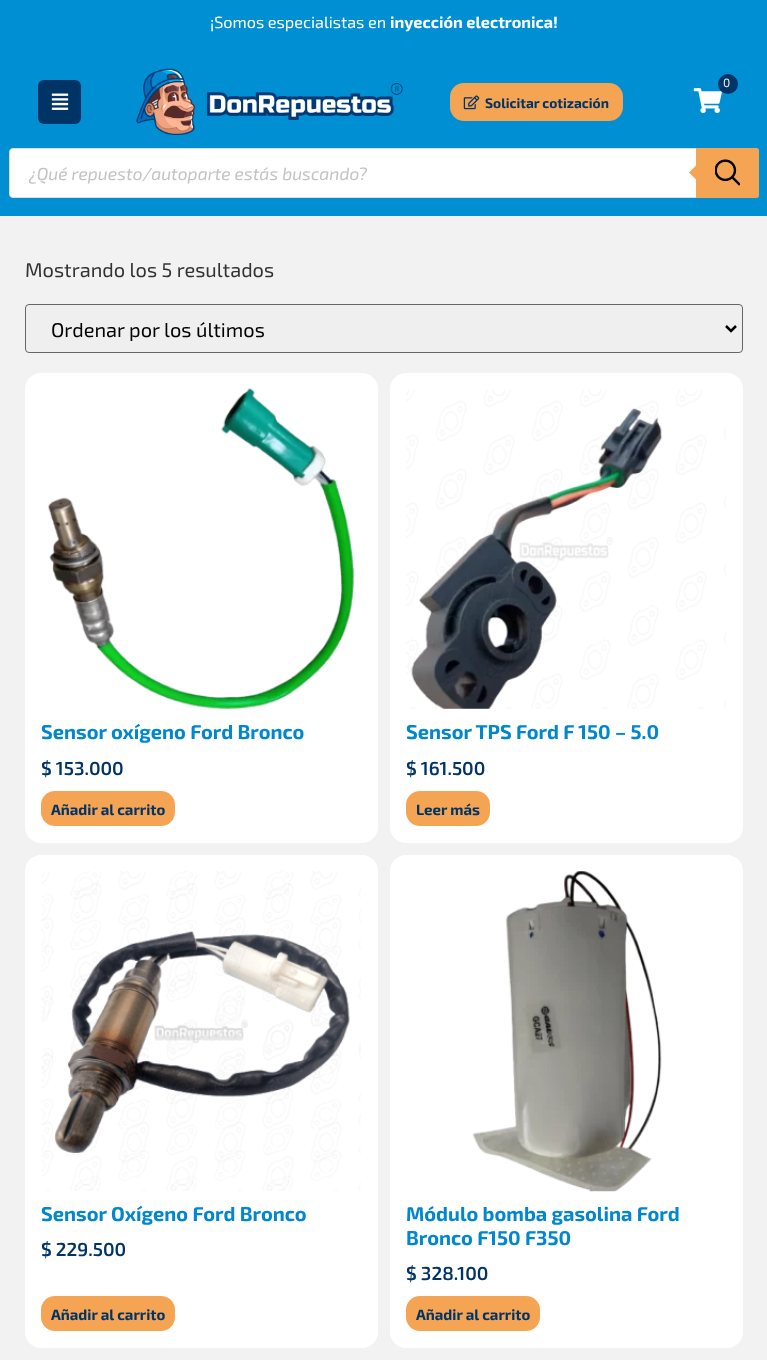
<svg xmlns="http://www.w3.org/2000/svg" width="767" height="1360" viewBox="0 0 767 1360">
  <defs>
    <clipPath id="clip1"><rect x="29" y="163" width="710" height="21"/></clipPath>
  </defs>
  <rect width="100%" height="100%" fill="#f2f2f2"/>
  <rect x="0" y="0" width="767" height="216" fill="#008fd3"/>
  <text x="210" y="28" font-family="'Exo 2'" font-size="16.25" fill="#ffffff">¡Somos especialistas en</text>
  <text x="390" y="28" font-family="'Exo 2'" font-size="16.25" font-weight="bold" fill="#ffffff">inyección electronica!</text>
  <rect x="38" y="80" width="43" height="44" rx="6" fill="#003366"/>
  <image x="51" y="93" width="18" height="17" href="img1.png"/>
  <image x="136" y="68" width="267" height="67" href="img2.png"/>
  <rect x="450" y="83" width="173" height="38" rx="14" fill="#f4a453"/>
  <image x="463" y="95" width="17" height="15" href="img3.png"/>
  <text x="485" y="108" font-family="'Exo 2'" font-size="13.75" font-weight="bold" fill="#003366">Solicitar cotización</text>
  <image x="693" y="88" width="29" height="26" href="img4.png"/>
  <circle cx="728" cy="84" r="10" fill="#003366"/>
  <text x="723" y="87" font-family="'Exo 2'" font-size="12" fill="#f2f2f2">0</text>
  <rect x="9.5" y="148.5" width="749" height="49" rx="3.5" fill="#ffffff" stroke="#dddddd"/>
  <g clip-path="url(#clip1)">
    <text x="29" y="180" font-family="'Exo 2'" font-size="17.5" font-style="italic" fill="#c3c3c3">¿Qué repuesto/autoparte estás buscando?</text>
  </g>
  <path d="M696 148H756.5C758 148 759 149 759 150.5V195.5C759 197 758 198 756.5 198H696Z" fill="#f4a453"/>
  <path d="M699 162.5V182.5L689 172.5Z" fill="#f4a453"/>
  <image x="715" y="159" width="25" height="27" href="img5.png"/>
  <text x="25" y="277" font-family="'Exo 2'" font-size="20" fill="#333333">Mostrando los 5 resultados</text>
  <rect x="25.5" y="304.5" width="717" height="48" rx="3.5" fill="#efefef" stroke="#666666"/>
  <path d="M726 326L731 331L736 326" fill="none" stroke="#000000" stroke-width="2.5"/>
  <text x="51" y="337" font-family="'Exo 2'" font-size="20" fill="#000000">Ordenar por los últimos</text>
  <rect x="25" y="373" width="353" height="470" rx="16" fill="#ffffff"/>
  <image x="47" y="388" width="307" height="321" href="img6.png"/>
  <text x="41" y="739" font-family="'Exo 2'" font-size="20" font-weight="bold" fill="#0087cd">Sensor oxígeno Ford Bronco</text>
  <text x="41" y="775" font-family="'Exo 2'" font-size="18.75" font-weight="600" fill="#003366">$ 153.000</text>
  <rect x="41" y="791" width="134" height="35" rx="14" fill="#f4a453"/>
  <text x="51" y="815" font-family="'Exo 2'" font-size="15" font-weight="bold" fill="#003366">Añadir al carrito</text>
  <rect x="390" y="373" width="353" height="470" rx="16" fill="#ffffff"/>
  <image x="406" y="389" width="320" height="320" href="img7.png"/>
  <text x="406" y="739" font-family="'Exo 2'" font-size="20" font-weight="bold" fill="#0087cd">Sensor TPS Ford F 150 – 5.0</text>
  <text x="406" y="775" font-family="'Exo 2'" font-size="18.75" font-weight="600" fill="#003366">$ 161.500</text>
  <rect x="406" y="791" width="84" height="35" rx="14" fill="#f4a453"/>
  <text x="416" y="815" font-family="'Exo 2'" font-size="15" font-weight="bold" fill="#003366">Leer más</text>
  <rect x="25" y="855" width="353" height="493" rx="16" fill="#ffffff"/>
  <image x="41" y="871" width="320" height="320" href="img8.png"/>
  <text x="41" y="1221" font-family="'Exo 2'" font-size="20" font-weight="bold" fill="#0087cd">Sensor Oxígeno Ford Bronco</text>
  <text x="41" y="1256" font-family="'Exo 2'" font-size="18.75" font-weight="600" fill="#003366">$ 229.500</text>
  <rect x="41" y="1296" width="134" height="35" rx="14" fill="#f4a453"/>
  <text x="51" y="1320" font-family="'Exo 2'" font-size="15" font-weight="bold" fill="#003366">Añadir al carrito</text>
  <rect x="390" y="855" width="353" height="493" rx="16" fill="#ffffff"/>
  <image x="472" y="871" width="190" height="321" href="img9.png"/>
  <text x="406" y="1221" font-family="'Exo 2'" font-size="20" font-weight="bold" fill="#0087cd">Módulo bomba gasolina Ford</text>
  <text x="406" y="1245" font-family="'Exo 2'" font-size="20" font-weight="bold" fill="#0087cd">Bronco F150 F350</text>
  <text x="406" y="1280" font-family="'Exo 2'" font-size="18.75" font-weight="600" fill="#003366">$ 328.100</text>
  <rect x="406" y="1296" width="134" height="35" rx="14" fill="#f4a453"/>
  <text x="416" y="1320" font-family="'Exo 2'" font-size="15" font-weight="bold" fill="#003366">Añadir al carrito</text>
</svg>
